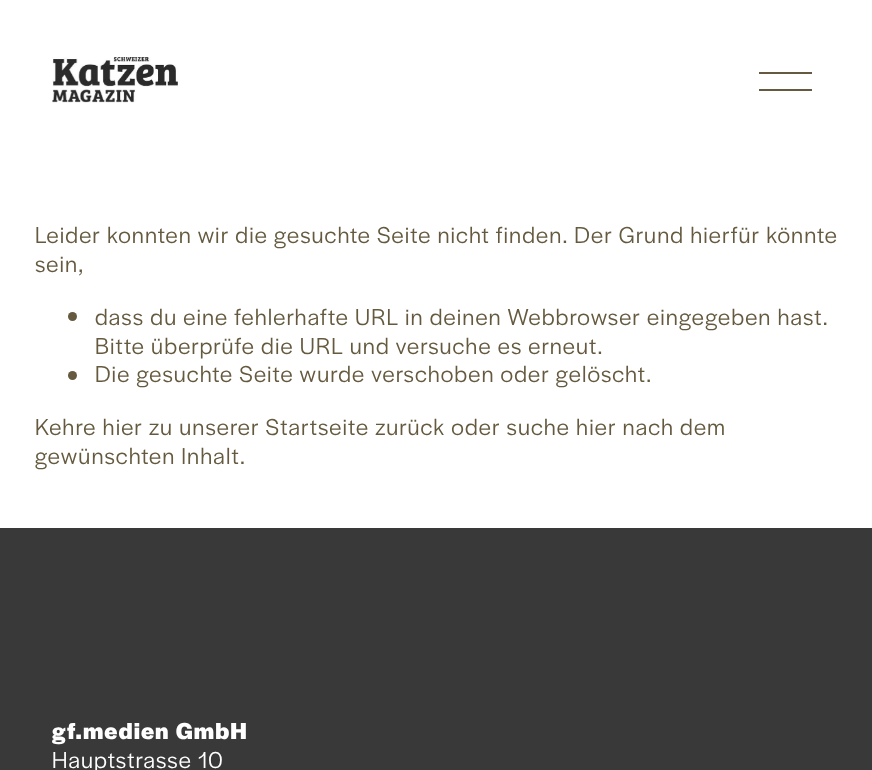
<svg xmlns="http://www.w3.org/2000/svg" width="872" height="770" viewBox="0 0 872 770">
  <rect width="100%" height="100%" fill="#ffffff"/>
  <image x="52" y="57" width="126" height="46" href="img1.png"/>
  <rect x="759" y="72" width="53" height="2" fill="#655a3f"/>
  <rect x="759" y="89" width="53" height="2" fill="#655a3f"/>
  <text x="35" y="243" font-family="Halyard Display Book" font-size="24" letter-spacing="1.2" fill="#655a3f">Leider konnten wir die gesuchte Seite nicht finden. Der Grund hierfür könnte</text>
  <text x="35" y="272" font-family="Halyard Display Book" font-size="24" letter-spacing="1.2" fill="#655a3f">sein,</text>
  <circle cx="72.5" cy="316.5" r="4.5" fill="#655a3f"/>
  <text x="95" y="325" font-family="Halyard Display Book" font-size="24" letter-spacing="1.2" fill="#655a3f">dass du eine fehlerhafte URL in deinen Webbrowser eingegeben hast.</text>
  <text x="95" y="354" font-family="Halyard Display Book" font-size="24" letter-spacing="1.2" fill="#655a3f">Bitte überprüfe die URL und versuche es erneut.</text>
  <circle cx="72.5" cy="375.5" r="4.5" fill="#655a3f"/>
  <text x="95" y="382" font-family="Halyard Display Book" font-size="24" letter-spacing="1.2" fill="#655a3f">Die gesuchte Seite wurde verschoben oder gelöscht.</text>
  <text x="35" y="435" font-family="Halyard Display Book" font-size="24" letter-spacing="1.2" fill="#655a3f">Kehre hier zu unserer Startseite zurück oder suche hier nach dem</text>
  <text x="35" y="464" font-family="Halyard Display Book" font-size="24" letter-spacing="1.2" fill="#655a3f">gewünschten Inhalt.</text>
  <rect x="0" y="528" width="872" height="242" fill="#393939"/>
  <text x="52" y="739" font-family="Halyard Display" font-size="24" font-weight="bold" letter-spacing="1.2" fill="#ffffff">gf.medien GmbH</text>
  <text x="52" y="768" font-family="Halyard Display Book" font-size="24" letter-spacing="1.2" fill="#ffffff">Hauptstrasse 10</text>
</svg>
